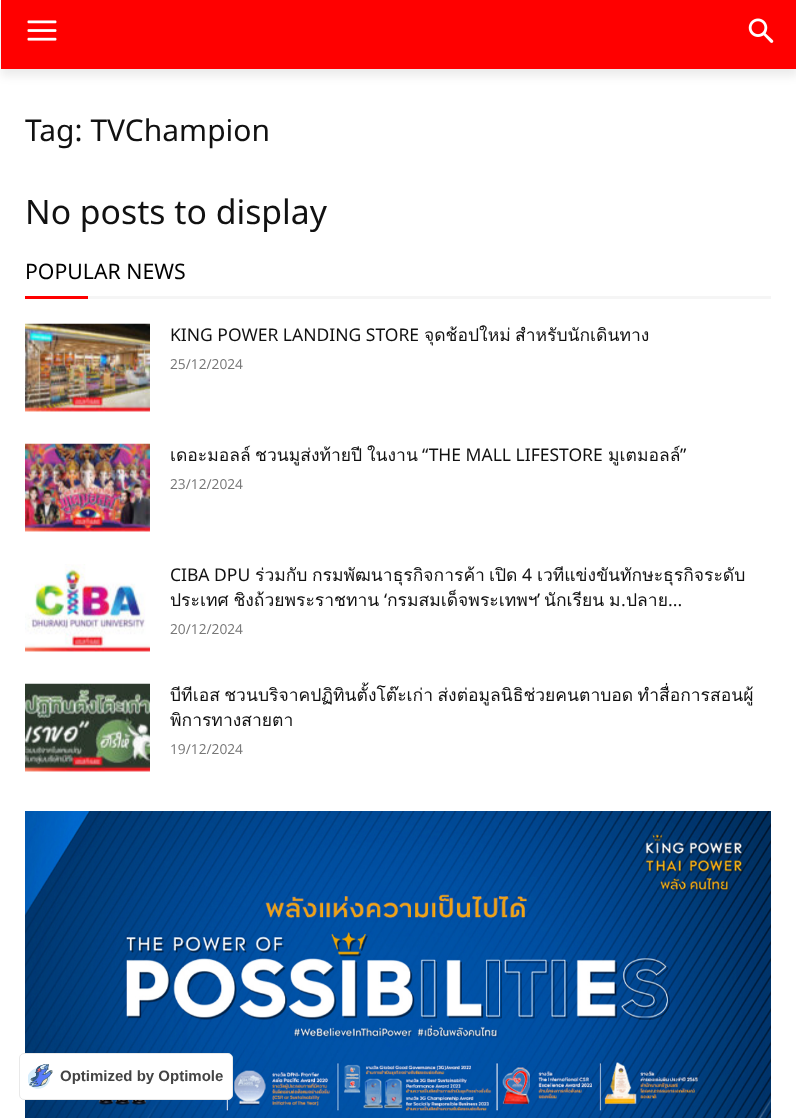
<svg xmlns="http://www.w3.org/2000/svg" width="796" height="1118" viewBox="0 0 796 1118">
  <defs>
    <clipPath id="clip1"><path d="M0 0H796V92H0ZM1 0H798V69H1Z" clip-rule="evenodd"/></clipPath>
    <filter id="blur1" x="-50%" y="-200%" width="200%" height="500%"><feGaussianBlur stdDeviation="5"/></filter>
  </defs>
  <rect width="100%" height="100%" fill="#ffffff"/>
  <rect x="1" y="0" width="795" height="69" fill="#ff0000"/>
  <image x="27" y="20" width="30" height="21" href="img1.png"/>
  <image x="748" y="18" width="26" height="25" href="img2.png"/>
  <g clip-path="url(#clip1)">
    <rect x="1" y="8" width="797" height="68" fill="#000000" fill-opacity="0.08" filter="url(#blur1)"/>
  </g>
  <text x="25" y="141" font-family="Noto Sans Thai" font-size="30" fill="#111111">Tag: TVChampion</text>
  <text x="25" y="224" font-family="Noto Sans Thai" font-size="33.75" fill="#111111">No posts to display</text>
  <text x="25" y="279" font-family="Noto Sans Thai" font-size="21.25" fill="#000000">POPULAR NEWS</text>
  <rect x="25" y="296" width="63" height="3" fill="#ff0000"/>
  <rect x="88" y="296" width="683" height="3" fill="#f5f5f5"/>
  <image x="25" y="323" width="125" height="89" href="img3.png"/>
  <text x="170" y="341" font-family="Noto Sans Thai" font-size="17.5" fill="#111111">KING POWER LANDING STORE</text>
  <text x="424" y="341" font-family="Loma" font-size="17.5" fill="#111111">จุดช้อปใหม่</text>
  <text x="515" y="341" font-family="Loma" font-size="17.5" fill="#111111">สำหรับนักเดินทาง</text>
  <text x="170" y="369" font-family="Open Sans" font-size="13.75" fill="#767676">25/12/2024</text>
  <image x="25" y="443" width="125" height="89" href="img4.png"/>
  <text x="170" y="461" font-family="Loma" font-size="17.5" fill="#111111">เดอะมอลล์</text>
  <text x="255" y="461" font-family="Loma" font-size="17.5" fill="#111111">ชวนมูส่งท้ายปี</text>
  <text x="367" y="461" font-family="Loma" font-size="17.5" fill="#111111">ในงาน</text>
  <text x="422" y="461" font-family="Noto Sans Thai" font-size="17.5" fill="#111111">“THE MALL LIFESTORE</text>
  <text x="608" y="461" font-family="Loma" font-size="17.5" fill="#111111">มูเตมอลล์</text>
  <text x="680" y="461" font-family="Noto Sans Thai" font-size="17.5" fill="#111111">”</text>
  <text x="170" y="489" font-family="Open Sans" font-size="13.75" fill="#767676">23/12/2024</text>
  <image x="25" y="564" width="125" height="88" href="img5.png"/>
  <text x="170" y="581" font-family="Noto Sans Thai" font-size="17.5" fill="#111111">CIBA DPU</text>
  <text x="255" y="581" font-family="Loma" font-size="17.5" fill="#111111">ร่วมกับ</text>
  <text x="312" y="581" font-family="Loma" font-size="17.5" fill="#111111">กรมพัฒนาธุรกิจการค้า</text>
  <text x="489" y="581" font-family="Loma" font-size="17.5" fill="#111111">เปิด</text>
  <text x="522" y="581" font-family="Noto Sans Thai" font-size="17.5" fill="#111111">4</text>
  <text x="537" y="581" font-family="Loma" font-size="17.5" fill="#111111">เวทีแข่งขันทักษะธุรกิจระดับ</text>
  <text x="170" y="606" word-spacing="-1" font-family="Loma" font-size="17.5" fill="#111111">ประเทศ ชิงถ้วยพระราชทาน</text>
  <text x="384" y="606" font-family="Noto Sans Thai" font-size="17.5" fill="#111111">‘</text>
  <text x="387" y="606" font-family="Loma" font-size="17.5" fill="#111111">กรมสมเด็จพระเทพฯ</text>
  <text x="537" y="606" font-family="Noto Sans Thai" font-size="17.5" fill="#111111">’</text>
  <text x="544" y="606" word-spacing="-1" font-family="Loma" font-size="17.5" fill="#111111">นักเรียน ม</text>
  <text x="621" y="606" font-family="Noto Sans Thai" font-size="17.5" fill="#111111">.</text>
  <text x="626" y="606" font-family="Loma" font-size="17.5" fill="#111111">ปลาย</text>
  <text x="668" y="606" font-family="Noto Sans Thai" font-size="17.5" fill="#111111">...</text>
  <text x="170" y="634" font-family="Open Sans" font-size="13.75" fill="#767676">20/12/2024</text>
  <image x="25" y="683" width="125" height="89" href="img6.png"/>
  <text x="170" y="701" word-spacing="-1.5" font-family="Loma" font-size="17.5" fill="#111111">บีทีเอส ชวนบริจาคปฏิทินตั้งโต๊ะเก่า ส่งต่อมูลนิธิช่วยคนตาบอด ทำสื่อการสอนผู้</text>
  <text x="170" y="726" font-family="Loma" font-size="17.5" fill="#111111">พิการทางสายตา</text>
  <text x="170" y="754" font-family="Open Sans" font-size="13.75" fill="#767676">19/12/2024</text>
  <image x="25" y="811" width="746" height="307" href="img7.png"/>
  <rect x="19.5" y="1053.5" width="213" height="46" rx="4.5" fill="#ffffff" stroke="#e9e9e9"/>
  <image x="28" y="1064" width="25" height="25" href="img8.png"/>
  <text x="60" y="1081" font-family="Liberation Sans" font-size="15" font-weight="bold" fill="#444444">Optimized by Optimole</text>
</svg>
